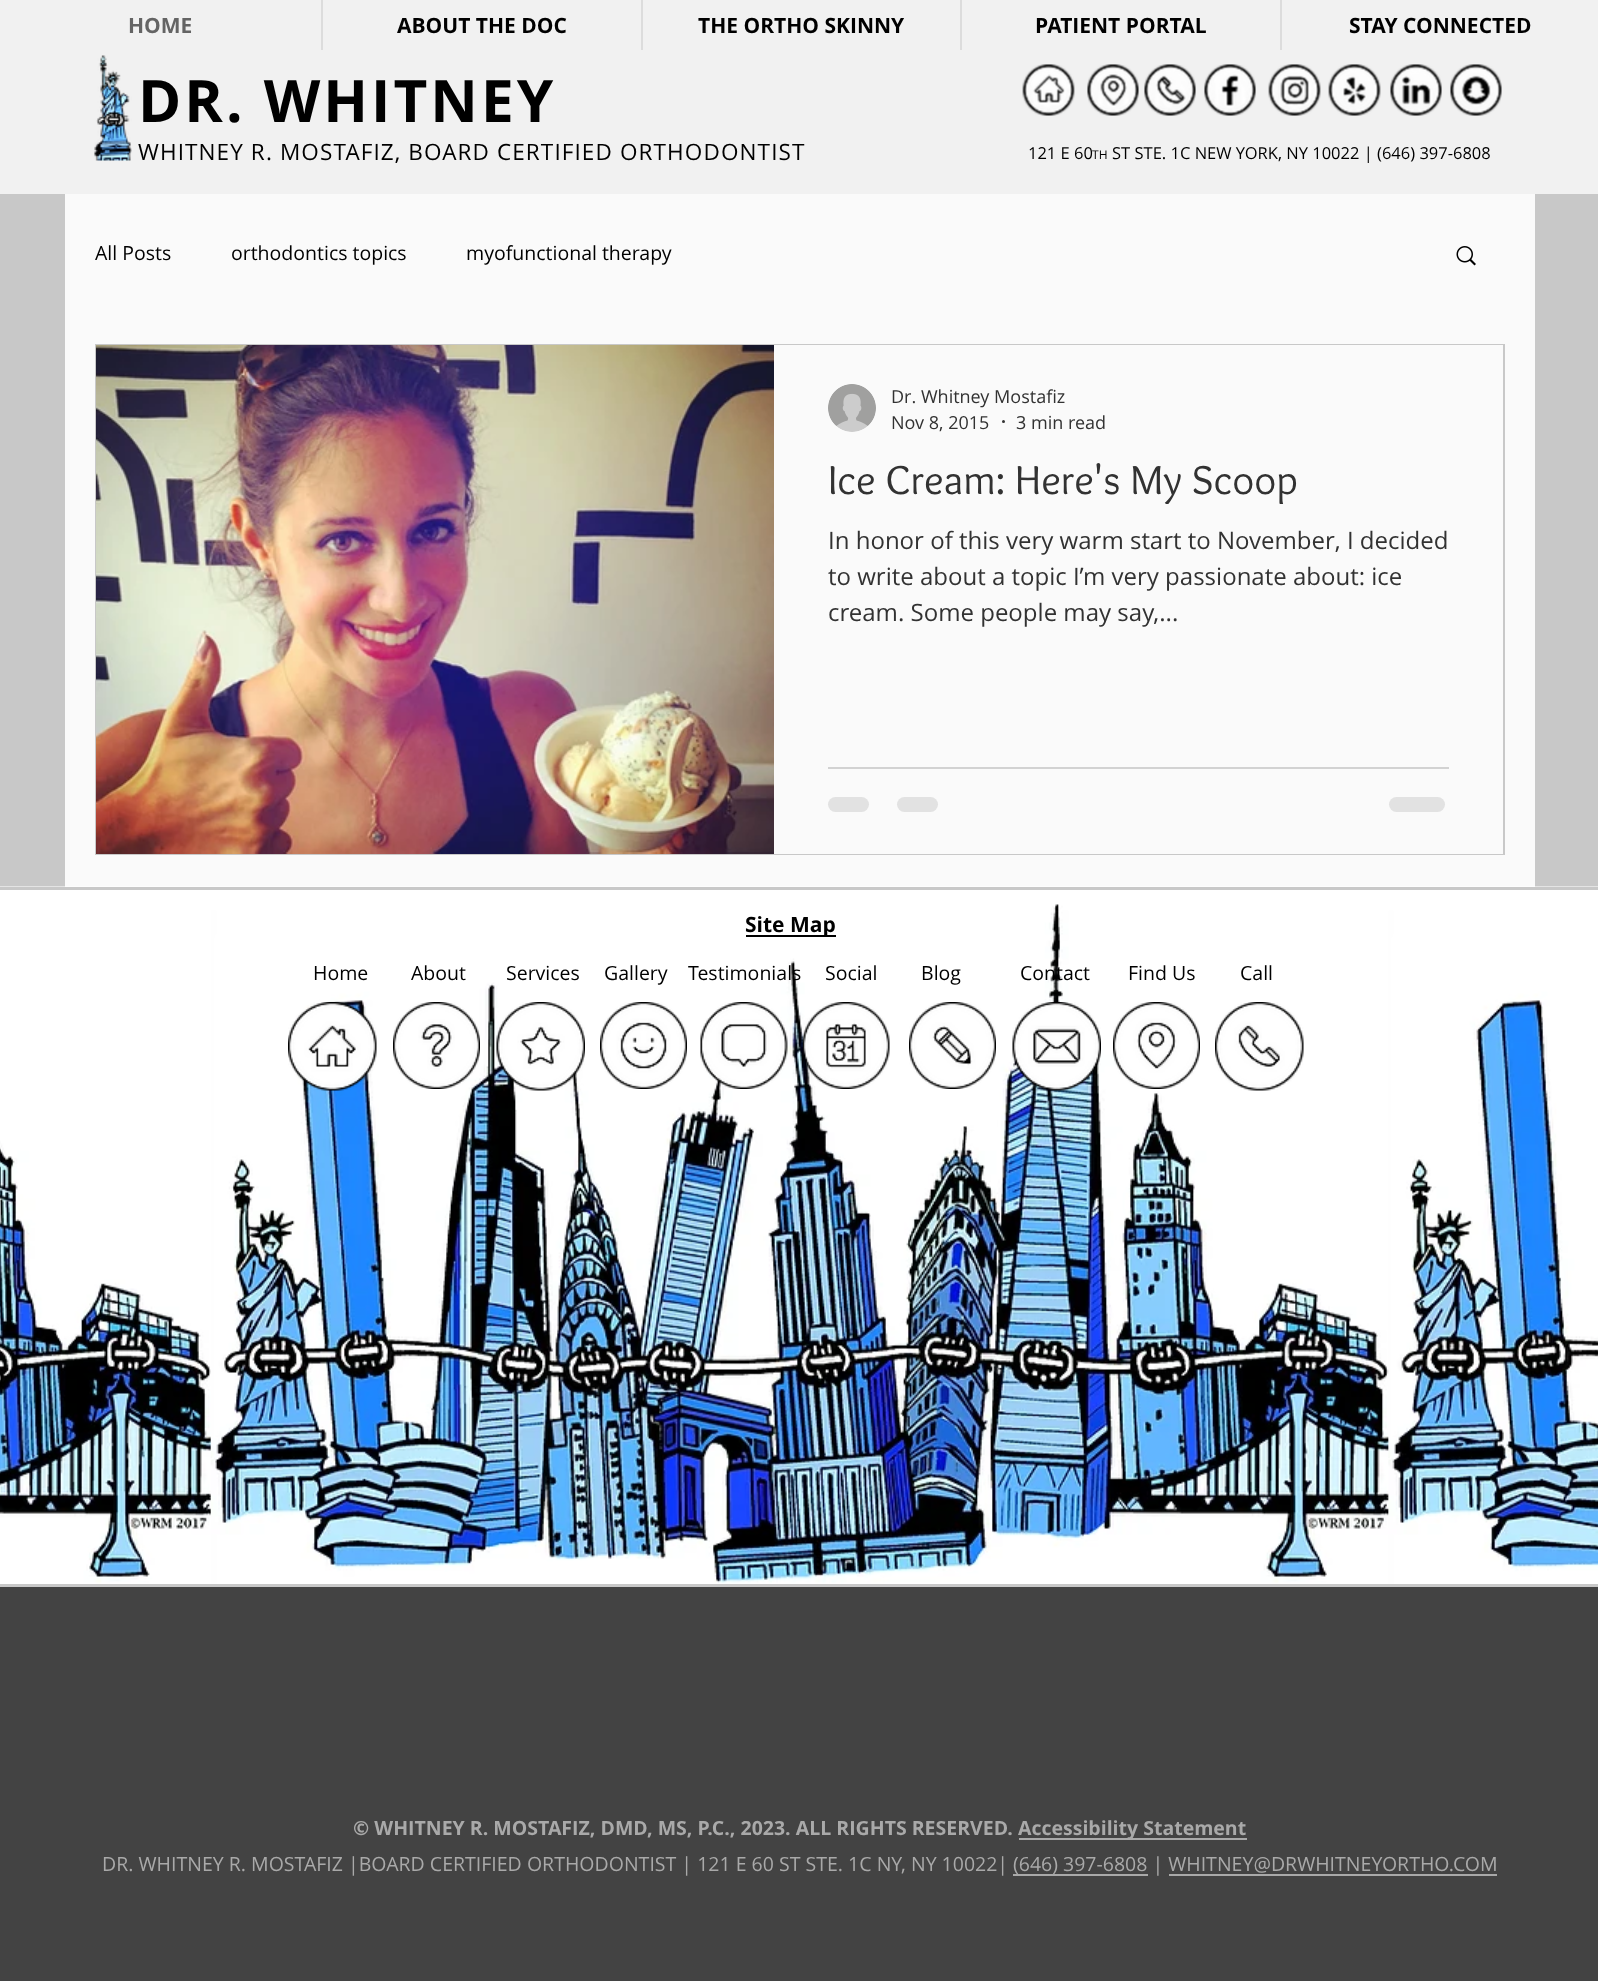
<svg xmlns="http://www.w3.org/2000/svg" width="1598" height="1981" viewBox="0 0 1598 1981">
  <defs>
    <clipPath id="clip1"><rect x="828" y="453" width="621" height="51"/></clipPath>
  </defs>
  <rect width="100%" height="100%" fill="#c8c8c8"/>
  <rect x="0" y="0" width="1598" height="194" fill="#f1f1f1"/>
  <text x="128" y="33" font-family="Open Sans" font-size="21" font-weight="bold" fill="#646464">HOME</text>
  <rect x="321" y="0" width="2" height="50" fill="#dcdcdc"/>
  <text x="397" y="33" font-family="Open Sans" font-size="21" font-weight="bold" fill="#000000">ABOUT THE DOC</text>
  <rect x="641" y="0" width="2" height="50" fill="#dcdcdc"/>
  <text x="698" y="33" font-family="Open Sans" font-size="21" font-weight="bold" fill="#000000">THE ORTHO SKINNY</text>
  <rect x="960" y="0" width="2" height="50" fill="#dcdcdc"/>
  <text x="1035" y="33" font-family="Open Sans" font-size="21" font-weight="bold" fill="#000000">PATIENT PORTAL</text>
  <rect x="1280" y="0" width="2" height="50" fill="#dcdcdc"/>
  <text x="1349" y="33" font-family="Open Sans" font-size="21" font-weight="bold" fill="#000000">STAY CONNECTED</text>
  <image x="94" y="55" width="38" height="106" href="img1.png"/>
  <text x="138" y="122" font-family="Open Sans" font-size="58.5" font-weight="bold" letter-spacing="3" fill="#000000">DR. WHITNEY</text>
  <text x="138" y="160" font-family="Open Sans" font-size="22.5" letter-spacing="1.1" fill="#000000">WHITNEY R. MOSTAFIZ, BOARD CERTIFIED ORTHODONTIST</text>
  <image x="1022" y="64" width="53" height="52" href="img2.png"/>
  <image x="1087" y="64" width="52" height="52" href="img3.png"/>
  <image x="1144" y="64" width="52" height="52" href="img4.png"/>
  <image x="1204" y="64" width="52" height="52" href="img5.png"/>
  <image x="1268" y="64" width="53" height="52" href="img6.png"/>
  <image x="1328" y="64" width="53" height="52" href="img7.png"/>
  <image x="1390" y="64" width="52" height="52" href="img8.png"/>
  <image x="1450" y="64" width="52" height="52" href="img9.png"/>
  <text x="1028" y="159" font-family="Open Sans" font-size="16.5" fill="#000000">121 E 60</text>
  <text x="1092" y="159" font-family="Open Sans" font-size="12" fill="#000000">TH</text>
  <text x="1112" y="159" font-family="Open Sans" font-size="16.5" fill="#000000">ST STE. 1C NEW YORK, NY 10022 | (646) 397-6808</text>
  <rect x="65" y="194" width="1470" height="693" fill="#fafafa"/>
  <text x="95" y="260" font-family="Open Sans" font-size="19.5" fill="#000000">All Posts</text>
  <text x="231" y="260" font-family="Open Sans" font-size="19.5" fill="#000000">orthodontics topics</text>
  <text x="466" y="260" font-family="Open Sans" font-size="19.5" fill="#000000">myofunctional therapy</text>
  <image x="1456" y="246" width="20" height="20" href="img10.png"/>
  <rect x="96" y="345" width="1408" height="509" fill="none" stroke="#c8c8c8" stroke-width="2"/>
  <image x="96" y="345" width="678" height="509" href="img11.png"/>
  <rect x="774" y="345" width="729" height="509" fill="#fafafa"/>
  <image x="828" y="384" width="48" height="48" href="img12.png"/>
  <text x="891" y="403" font-family="Open Sans" font-size="18" fill="#323232">Dr. Whitney Mostafiz</text>
  <text x="891" y="429" font-family="Open Sans" font-size="18" fill="#323232">Nov 8, 2015</text>
  <circle cx="1003.5" cy="421.5" r="1.5" fill="#323232"/>
  <text x="1016" y="429" font-family="Open Sans" font-size="18" fill="#323232">3 min read</text>
  <g clip-path="url(#clip1)">
    <text x="828" y="494" font-family="Overlock" font-size="42" fill="#323232">Ice Cream: Here's My Scoop</text>
  </g>
  <text x="828" y="549" font-family="Open Sans" font-size="24" fill="#323232">In honor of this very warm start to November, I decided</text>
  <text x="828" y="585" font-family="Open Sans" font-size="24" fill="#323232">to write about a topic I’m very passionate about: ice</text>
  <text x="828" y="621" font-family="Open Sans" font-size="24" fill="#323232">cream. Some people may say,...</text>
  <rect x="828" y="767" width="621" height="2" fill="#d2d2d2"/>
  <rect x="828" y="797" width="41" height="15" rx="7.5" fill="#e2e2e2"/>
  <rect x="897" y="797" width="41" height="15" rx="7.5" fill="#e2e2e2"/>
  <rect x="1389" y="797" width="56" height="15" rx="7.5" fill="#e2e2e2"/>
  <image x="0" y="886" width="1598" height="698" href="img13.png"/>
  <rect x="0" y="887" width="1598" height="3" fill="#c8c8c8"/>
  <rect x="746" y="935" width="90" height="2" fill="#000000"/>
  <text x="745" y="932" font-family="Open Sans" font-size="21" font-weight="bold" fill="#000000">Site Map</text>
  <text x="313" y="980" font-family="Open Sans" font-size="19.5" fill="#000000">Home</text>
  <text x="411" y="980" font-family="Open Sans" font-size="19.5" fill="#000000">About</text>
  <text x="506" y="980" font-family="Open Sans" font-size="19.5" fill="#000000">Services</text>
  <text x="604" y="980" font-family="Open Sans" font-size="19.5" fill="#000000">Gallery</text>
  <text x="688" y="980" font-family="Open Sans" font-size="19.5" fill="#000000">Testimonials</text>
  <text x="825" y="980" font-family="Open Sans" font-size="19.5" fill="#000000">Social</text>
  <text x="921" y="980" font-family="Open Sans" font-size="19.5" fill="#000000">Blog</text>
  <text x="1020" y="980" font-family="Open Sans" font-size="19.5" fill="#000000">Contact</text>
  <text x="1128" y="980" font-family="Open Sans" font-size="19.5" fill="#000000">Find Us</text>
  <text x="1240" y="980" font-family="Open Sans" font-size="19.5" fill="#000000">Call</text>
  <image x="288" y="1002" width="89" height="89" href="img14.png"/>
  <image x="393" y="1002" width="87" height="87" href="img15.png"/>
  <image x="496" y="1002" width="89" height="89" href="img16.png"/>
  <image x="600" y="1002" width="87" height="87" href="img17.png"/>
  <image x="700" y="1002" width="88" height="87" href="img18.png"/>
  <image x="802" y="1002" width="88" height="87" href="img19.png"/>
  <image x="909" y="1002" width="87" height="87" href="img20.png"/>
  <image x="1012" y="1002" width="89" height="89" href="img21.png"/>
  <image x="1113" y="1002" width="87" height="87" href="img22.png"/>
  <image x="1215" y="1002" width="89" height="89" href="img23.png"/>
  <rect x="0" y="1587" width="1598" height="394" fill="#434343"/>
  <text x="353" y="1835" font-family="Open Sans" font-size="19.5" font-weight="bold" fill="#a9a9a9">© WHITNEY R. MOSTAFIZ, DMD, MS, P.C., 2023. ALL RIGHTS RESERVED.</text>
  <rect x="1019" y="1838" width="228" height="2" fill="#a9a9a9"/>
  <text x="1018" y="1835" font-family="Open Sans" font-size="19.5" font-weight="bold" fill="#a9a9a9">Accessibility Statement</text>
  <text x="102" y="1871" font-family="Open Sans" font-size="19.5" fill="#a9a9a9">DR. WHITNEY R. MOSTAFIZ |BOARD CERTIFIED ORTHODONTIST | 121 E 60 ST STE. 1C NY, NY 10022|</text>
  <rect x="1013" y="1874" width="135" height="2" fill="#a9a9a9"/>
  <text x="1013" y="1871" font-family="Open Sans" font-size="19.5" fill="#a9a9a9">(646) 397-6808 | WHITNEY@DRWHITNEYORTHO.COM</text>
  <rect x="1169" y="1874" width="328" height="2" fill="#a9a9a9"/>
</svg>
